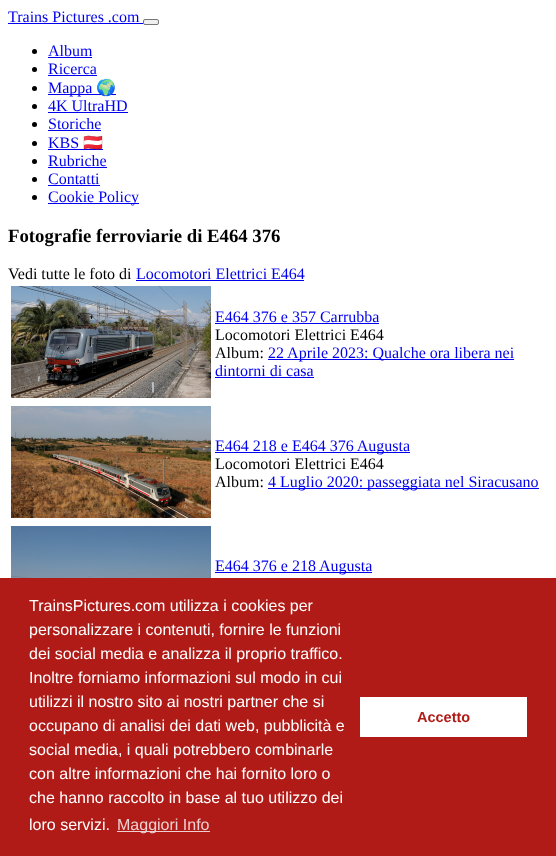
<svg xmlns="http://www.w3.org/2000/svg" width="556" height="856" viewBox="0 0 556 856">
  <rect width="100%" height="100%" fill="#ffffff"/>
  <text x="8" y="22" font-family="Liberation Serif" font-size="16" fill="#0000ee">Trains Pictures .com</text>
  <rect x="8" y="23" width="135" height="1" fill="#0000ee"/>
  <rect x="143.5" y="19.5" width="15" height="5" rx="1.5" fill="#efefef" stroke="#767676"/>
  <circle cx="34.5" cy="51.5" r="2.5" fill="#000000"/>
  <text x="48" y="56" font-family="Liberation Serif" font-size="16" fill="#0000ee">Album</text>
  <rect x="48" y="57" width="44" height="1" fill="#0000ee"/>
  <circle cx="34.5" cy="69.5" r="2.5" fill="#000000"/>
  <text x="48" y="74" font-family="Liberation Serif" font-size="16" fill="#0000ee">Ricerca</text>
  <rect x="48" y="75" width="49" height="1" fill="#0000ee"/>
  <circle cx="34.5" cy="88.5" r="2.5" fill="#000000"/>
  <rect x="48" y="94" width="68" height="1" fill="#0000ee"/>
  <text x="48" y="93" font-family="Liberation Serif" font-size="16" fill="#0000ee">Mappa</text>
  <text x="96" y="93" font-family="Noto Color Emoji" font-size="16" fill="#0000ee">🌍</text>
  <circle cx="34.5" cy="106.5" r="2.5" fill="#000000"/>
  <text x="48" y="111" font-family="Liberation Serif" font-size="16" fill="#0000ee">4K UltraHD</text>
  <rect x="48" y="112" width="80" height="1" fill="#0000ee"/>
  <circle cx="34.5" cy="124.5" r="2.5" fill="#000000"/>
  <text x="48" y="129" font-family="Liberation Serif" font-size="16" fill="#0000ee">Storiche</text>
  <rect x="48" y="130" width="53" height="1" fill="#0000ee"/>
  <circle cx="34.5" cy="143.5" r="2.5" fill="#000000"/>
  <text x="48" y="148" font-family="Liberation Serif" font-size="16" fill="#0000ee">KBS</text>
  <rect x="48" y="149" width="55" height="1" fill="#0000ee"/>
  <text x="83" y="148" font-family="Noto Color Emoji" font-size="16" fill="#0000ee">🇦🇹</text>
  <circle cx="34.5" cy="161.5" r="2.5" fill="#000000"/>
  <text x="48" y="166" font-family="Liberation Serif" font-size="16" fill="#0000ee">Rubriche</text>
  <rect x="48" y="167" width="59" height="1" fill="#0000ee"/>
  <circle cx="34.5" cy="179.5" r="2.5" fill="#000000"/>
  <text x="48" y="184" font-family="Liberation Serif" font-size="16" fill="#0000ee">Contatti</text>
  <rect x="48" y="185" width="52" height="1" fill="#0000ee"/>
  <circle cx="34.5" cy="197.5" r="2.5" fill="#000000"/>
  <rect x="48" y="203" width="91" height="1" fill="#0000ee"/>
  <text x="48" y="202" font-family="Liberation Serif" font-size="16" fill="#0000ee">Cookie Policy</text>
  <text x="8" y="242" font-family="Liberation Serif" font-size="18.75" font-weight="bold" fill="#000000">Fotografie ferroviarie di E464 376</text>
  <text x="8" y="279" font-family="Liberation Serif" font-size="16" fill="#000000">Vedi tutte le foto di</text>
  <text x="136" y="279" font-family="Liberation Serif" font-size="16" fill="#0000ee">Locomotori Elettrici E464</text>
  <rect x="136" y="280" width="168" height="1" fill="#0000ee"/>
  <image x="11" y="286" width="200" height="112" href="img1.png"/>
  <text x="215" y="322" font-family="Liberation Serif" font-size="16" fill="#0000ee">E464 376 e 357 Carrubba</text>
  <rect x="215" y="323" width="164" height="1" fill="#0000ee"/>
  <text x="215" y="340" font-family="Liberation Serif" font-size="16" fill="#000000">Locomotori Elettrici E464</text>
  <text x="215" y="358" font-family="Liberation Serif" font-size="16" fill="#000000">Album:</text>
  <rect x="268" y="359" width="246" height="1" fill="#0000ee"/>
  <text x="268" y="358" font-family="Liberation Serif" font-size="16" fill="#0000ee">22 Aprile 2023: Qualche ora libera nei</text>
  <text x="215" y="376" font-family="Liberation Serif" font-size="16" fill="#0000ee">dintorni di casa</text>
  <rect x="215" y="377" width="99" height="1" fill="#0000ee"/>
  <image x="11" y="406" width="200" height="112" href="img2.png"/>
  <rect x="215" y="452" width="195" height="1" fill="#0000ee"/>
  <text x="215" y="451" font-family="Liberation Serif" font-size="16" fill="#0000ee">E464 218 e E464 376 Augusta</text>
  <text x="215" y="469" font-family="Liberation Serif" font-size="16" fill="#000000">Locomotori Elettrici E464</text>
  <text x="215" y="487" font-family="Liberation Serif" font-size="16" fill="#000000">Album:</text>
  <rect x="268" y="488" width="271" height="1" fill="#0000ee"/>
  <text x="268" y="487" font-family="Liberation Serif" font-size="16" fill="#0000ee">4 Luglio 2020: passeggiata nel Siracusano</text>
  <image x="11" y="526" width="200" height="52" href="img3.png"/>
  <rect x="215" y="572" width="157" height="1" fill="#0000ee"/>
  <text x="215" y="571" font-family="Liberation Serif" font-size="16" fill="#0000ee">E464 376 e 218 Augusta</text>
  <rect x="0" y="578" width="556" height="278" fill="#b01b17"/>
  <text x="29" y="611" font-family="Liberation Sans" font-size="16" fill="#ffffff">TrainsPictures.com utilizza i cookies per</text>
  <text x="29" y="635" font-family="Liberation Sans" font-size="16" fill="#ffffff">personalizzare i contenuti, fornire le funzioni</text>
  <text x="29" y="659" font-family="Liberation Sans" font-size="16" fill="#ffffff">dei social media e analizza il proprio traffico.</text>
  <text x="29" y="683" font-family="Liberation Sans" font-size="16" fill="#ffffff">Inoltre forniamo informazioni sul modo in cui</text>
  <text x="29" y="707" font-family="Liberation Sans" font-size="16" fill="#ffffff">utilizzi il nostro sito ai nostri partner che si</text>
  <text x="29" y="731" font-family="Liberation Sans" font-size="16" fill="#ffffff">occupano di analisi dei dati web, pubblicità e</text>
  <text x="29" y="755" font-family="Liberation Sans" font-size="16" fill="#ffffff">social media, i quali potrebbero combinarle</text>
  <text x="29" y="779" font-family="Liberation Sans" font-size="16" fill="#ffffff">con altre informazioni che hai fornito loro o</text>
  <text x="29" y="803" font-family="Liberation Sans" font-size="16" fill="#ffffff">che hanno raccolto in base al tuo utilizzo dei</text>
  <text x="29" y="830" font-family="Liberation Sans" font-size="16" fill="#ffffff">loro servizi.</text>
  <rect x="117" y="831" width="93" height="1" fill="#efd1d1"/>
  <text x="117" y="830" font-family="Liberation Sans" font-size="16" fill="#efd1d1">Maggiori Info</text>
  <rect x="360" y="697" width="167" height="40" fill="#ffffff"/>
  <text x="417" y="722" font-family="Liberation Sans" font-size="14.5" font-weight="bold" fill="#b01b17">Accetto</text>
</svg>
